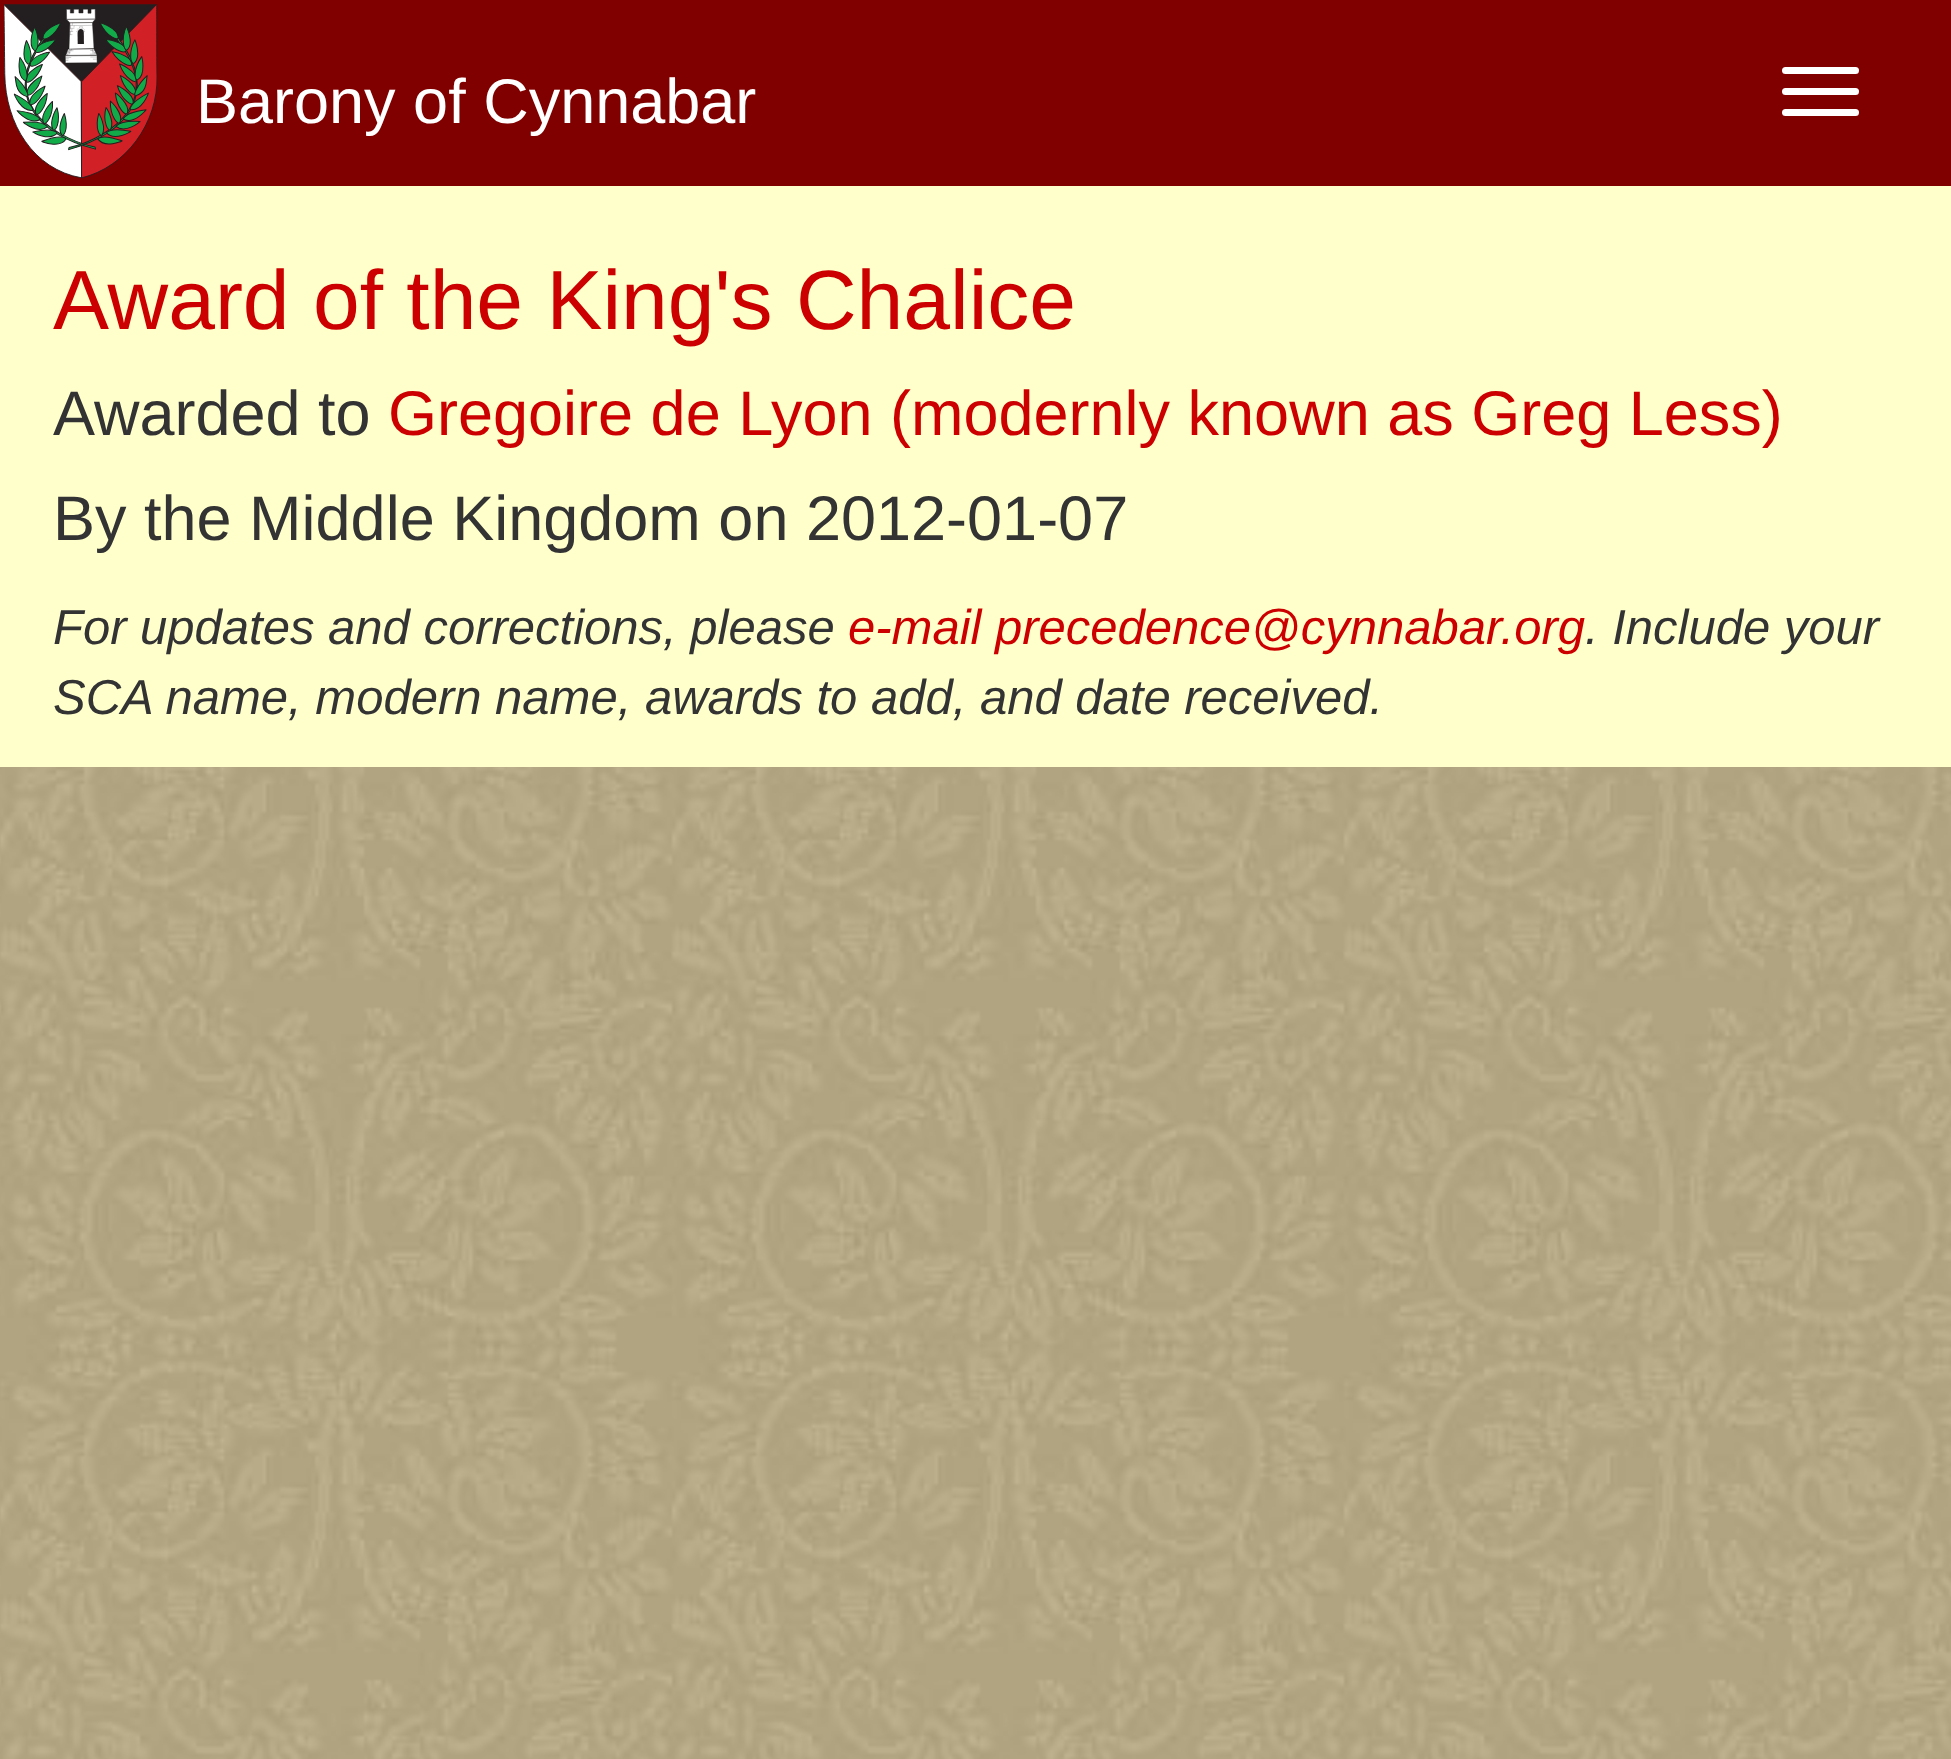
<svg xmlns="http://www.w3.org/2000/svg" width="1951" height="1759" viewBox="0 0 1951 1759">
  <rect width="100%" height="100%" fill="#ffffff"/>
  <image x="0" y="767" width="1951" height="992" href="img1.png"/>
  <rect x="0" y="0" width="1951" height="186" fill="#800000"/>
  <image x="4" y="4" width="154" height="175" href="img2.png"/>
  <text x="196" y="123" font-family="Liberation Sans" font-size="63" fill="#ffffff">Barony of Cynnabar</text>
  <rect x="1782" y="67" width="77" height="7" rx="3.5" fill="#ffffff"/>
  <rect x="1782" y="88" width="77" height="7" rx="3.5" fill="#ffffff"/>
  <rect x="1782" y="109" width="77" height="7" rx="3.5" fill="#ffffff"/>
  <rect x="0" y="186" width="1951" height="581" fill="#ffffcc"/>
  <text x="53" y="329" font-family="Liberation Sans" font-size="84" fill="#cc0000">Award of the King's Chalice</text>
  <text x="53" y="435" font-family="Liberation Sans" font-size="63" fill="#333333">Awarded to</text>
  <text x="388" y="435" font-family="Liberation Sans" font-size="63" fill="#cc0000">Gregoire de Lyon (modernly known as Greg Less)</text>
  <text x="53" y="540" font-family="Liberation Sans" font-size="63" fill="#333333">By the Middle Kingdom on 2012-01-07</text>
  <text x="53" y="644" font-family="Liberation Sans" font-size="49" font-style="italic" fill="#333333">For updates and corrections, please</text>
  <text x="848" y="644" font-family="Liberation Sans" font-size="49" font-style="italic" fill="#cc0000">e-mail precedence@cynnabar.org</text>
  <text x="1585" y="644" font-family="Liberation Sans" font-size="49" font-style="italic" fill="#333333">. Include your</text>
  <text x="53" y="714" font-family="Liberation Sans" font-size="49" font-style="italic" fill="#333333">SCA name, modern name, awards to add, and date received.</text>
</svg>
